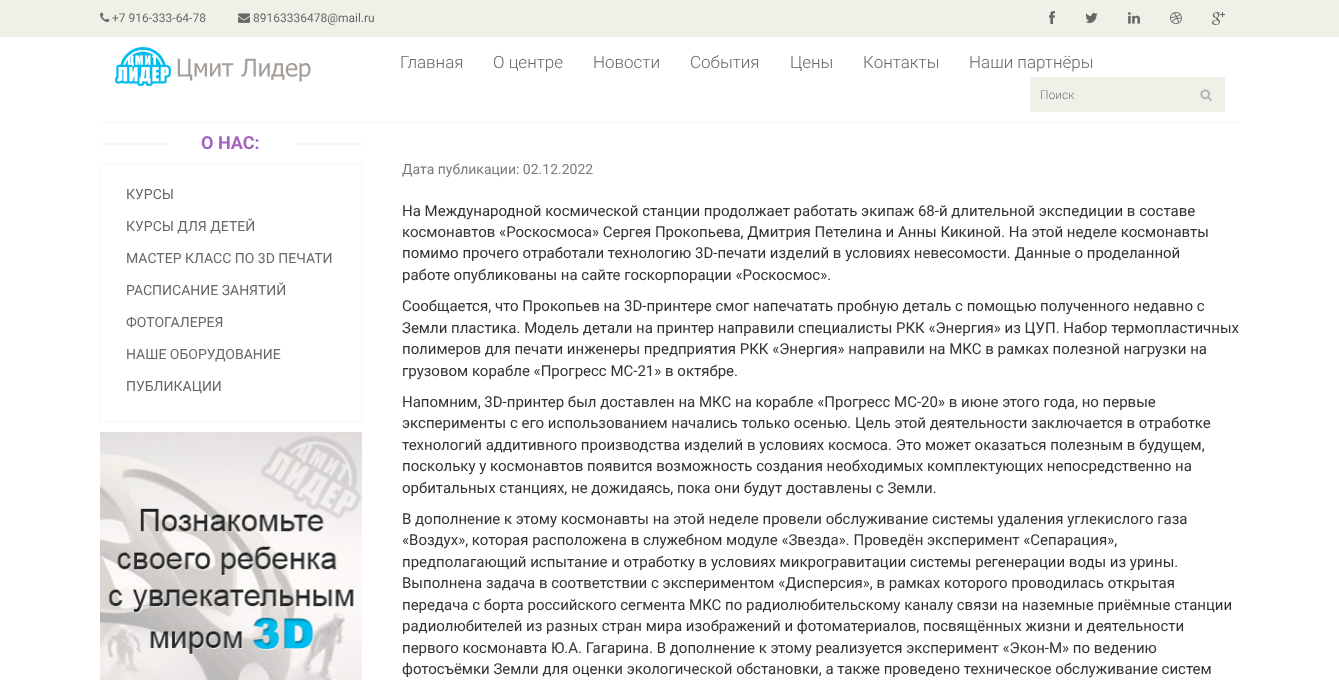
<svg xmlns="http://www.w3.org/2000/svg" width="1339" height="680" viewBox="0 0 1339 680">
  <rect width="100%" height="100%" fill="#ffffff"/>
  <rect x="0" y="0" width="1339" height="37" fill="#f0f0e9"/>
  <image x="100" y="12" width="10" height="10" href="img1.png"/>
  <text x="112" y="22" font-family="Roboto" font-size="12" fill="#696763">+7 916-333-64-78</text>
  <image x="238" y="13" width="12" height="10" href="img2.png"/>
  <text x="253" y="22" font-family="Roboto" font-size="12" fill="#696763">89163336478@mail.ru</text>
  <image x="1049" y="11" width="6" height="13" href="img3.png"/>
  <image x="1085" y="13" width="13" height="10" href="img4.png"/>
  <image x="1128" y="12" width="12" height="12" href="img5.png"/>
  <image x="1170" y="12" width="12" height="12" href="img6.png"/>
  <image x="1212" y="12" width="13" height="13" href="img7.png"/>
  <rect x="100" y="122" width="1140" height="1" fill="#f5f5f5"/>
  <image x="115" y="47" width="196" height="39" href="img8.png"/>
  <text x="400" y="68" font-family="Roboto" font-size="17" font-weight="300" fill="#696763">Главная</text>
  <text x="493" y="68" font-family="Roboto" font-size="17" font-weight="300" fill="#696763">О центре</text>
  <text x="593" y="68" font-family="Roboto" font-size="17" font-weight="300" fill="#696763">Новости</text>
  <text x="690" y="68" font-family="Roboto" font-size="17" font-weight="300" fill="#696763">События</text>
  <text x="790" y="68" font-family="Roboto" font-size="17" font-weight="300" fill="#696763">Цены</text>
  <text x="863" y="68" font-family="Roboto" font-size="17" font-weight="300" fill="#696763">Контакты</text>
  <text x="969" y="68" font-family="Roboto" font-size="17" font-weight="300" fill="#696763">Наши партнёры</text>
  <rect x="1030" y="77" width="195" height="35" fill="#f0f0e9"/>
  <image x="1200" y="89" width="12" height="12" href="img9.png"/>
  <text x="1040" y="99" font-family="Roboto" font-size="12" font-weight="300" fill="#757575">Поиск</text>
  <rect x="100" y="143" width="262" height="2" fill="#f5f5f5"/>
  <rect x="166" y="143" width="130" height="2" fill="#ffffff"/>
  <text x="201" y="149" font-family="Roboto" font-size="18" font-weight="bold" fill="#a364bd">О НАС:</text>
  <rect x="100.5" y="163.5" width="261" height="258" fill="none" stroke="#f7f7f0"/>
  <text x="126" y="199" font-family="Roboto" font-size="14" fill="#696763">КУРСЫ</text>
  <text x="126" y="231" font-family="Roboto" font-size="14" fill="#696763">КУРСЫ ДЛЯ ДЕТЕЙ</text>
  <text x="126" y="263" font-family="Roboto" font-size="14" fill="#696763">МАСТЕР КЛАСС ПО 3D ПЕЧАТИ</text>
  <text x="126" y="295" font-family="Roboto" font-size="14" fill="#696763">РАСПИСАНИЕ ЗАНЯТИЙ</text>
  <text x="126" y="327" font-family="Roboto" font-size="14" fill="#696763">ФОТОГАЛЕРЕЯ</text>
  <text x="126" y="359" font-family="Roboto" font-size="14" fill="#696763">НАШЕ ОБОРУДОВАНИЕ</text>
  <text x="126" y="391" font-family="Roboto" font-size="14" fill="#696763">ПУБЛИКАЦИИ</text>
  <image x="100" y="432" width="262" height="248" href="img10.png"/>
  <text x="402" y="174" font-family="Roboto" font-size="14" fill="#7b7b7b">Дата публикации: 02.12.2022</text>
  <text x="402" y="216" font-family="Roboto" font-size="15" fill="#333333">На Международной космической станции продолжает работать экипаж 68-й длительной экспедиции в составе</text>
  <text x="402" y="237" font-family="Roboto" font-size="15" fill="#333333">космонавтов «Роскосмоса» Сергея Прокопьева, Дмитрия Петелина и Анны Кикиной. На этой неделе космонавты</text>
  <text x="402" y="258" font-family="Roboto" font-size="15" fill="#333333">помимо прочего отработали технологию 3D-печати изделий в условиях невесомости. Данные о проделанной</text>
  <text x="402" y="280" font-family="Roboto" font-size="15" fill="#333333">работе опубликованы на сайте госкорпорации «Роскосмос».</text>
  <text x="402" y="311" font-family="Roboto" font-size="15" fill="#333333">Сообщается, что Прокопьев на 3D-принтере смог напечатать пробную деталь с помощью полученного недавно с</text>
  <text x="402" y="333" font-family="Roboto" font-size="15" fill="#333333">Земли пластика. Модель детали на принтер направили специалисты РКК «Энергия» из ЦУП. Набор термопластичных</text>
  <text x="402" y="354" font-family="Roboto" font-size="15" fill="#333333">полимеров для печати инженеры предприятия РКК «Энергия» направили на МКС в рамках полезной нагрузки на</text>
  <text x="402" y="376" font-family="Roboto" font-size="15" fill="#333333">грузовом корабле «Прогресс МС-21» в октябре.</text>
  <text x="402" y="407" font-family="Roboto" font-size="15" fill="#333333">Напомним, 3D-принтер был доставлен на МКС на корабле «Прогресс МС-20» в июне этого года, но первые</text>
  <text x="402" y="428" font-family="Roboto" font-size="15" fill="#333333">эксперименты с его использованием начались только осенью. Цель этой деятельности заключается в отработке</text>
  <text x="402" y="450" font-family="Roboto" font-size="15" fill="#333333">технологий аддитивного производства изделий в условиях космоса. Это может оказаться полезным в будущем,</text>
  <text x="402" y="471" font-family="Roboto" font-size="15" fill="#333333">поскольку у космонавтов появится возможность создания необходимых комплектующих непосредственно на</text>
  <text x="402" y="493" font-family="Roboto" font-size="15" fill="#333333">орбитальных станциях, не дожидаясь, пока они будут доставлены с Земли.</text>
  <text x="402" y="524" font-family="Roboto" font-size="15" fill="#333333">В дополнение к этому космонавты на этой неделе провели обслуживание системы удаления углекислого газа</text>
  <text x="402" y="545" font-family="Roboto" font-size="15" fill="#333333">«Воздух», которая расположена в служебном модуле «Звезда». Проведён эксперимент «Сепарация»,</text>
  <text x="402" y="567" font-family="Roboto" font-size="15" fill="#333333">предполагающий испытание и отработку в условиях микрогравитации системы регенерации воды из урины.</text>
  <text x="402" y="588" font-family="Roboto" font-size="15" fill="#333333">Выполнена задача в соответствии с экспериментом «Дисперсия», в рамках которого проводилась открытая</text>
  <text x="402" y="610" font-family="Roboto" font-size="15" fill="#333333">передача с борта российского сегмента МКС по радиолюбительскому каналу связи на наземные приёмные станции</text>
  <text x="402" y="631" font-family="Roboto" font-size="15" fill="#333333">радиолюбителей из разных стран мира изображений и фотоматериалов, посвящённых жизни и деятельности</text>
  <text x="402" y="653" font-family="Roboto" font-size="15" fill="#333333">первого космонавта Ю.А. Гагарина. В дополнение к этому реализуется эксперимент «Экон-М» по ведению</text>
  <text x="402" y="674" font-family="Roboto" font-size="15" fill="#333333">фотосъёмки Земли для оценки экологической обстановки, а также проведено техническое обслуживание систем</text>
</svg>
